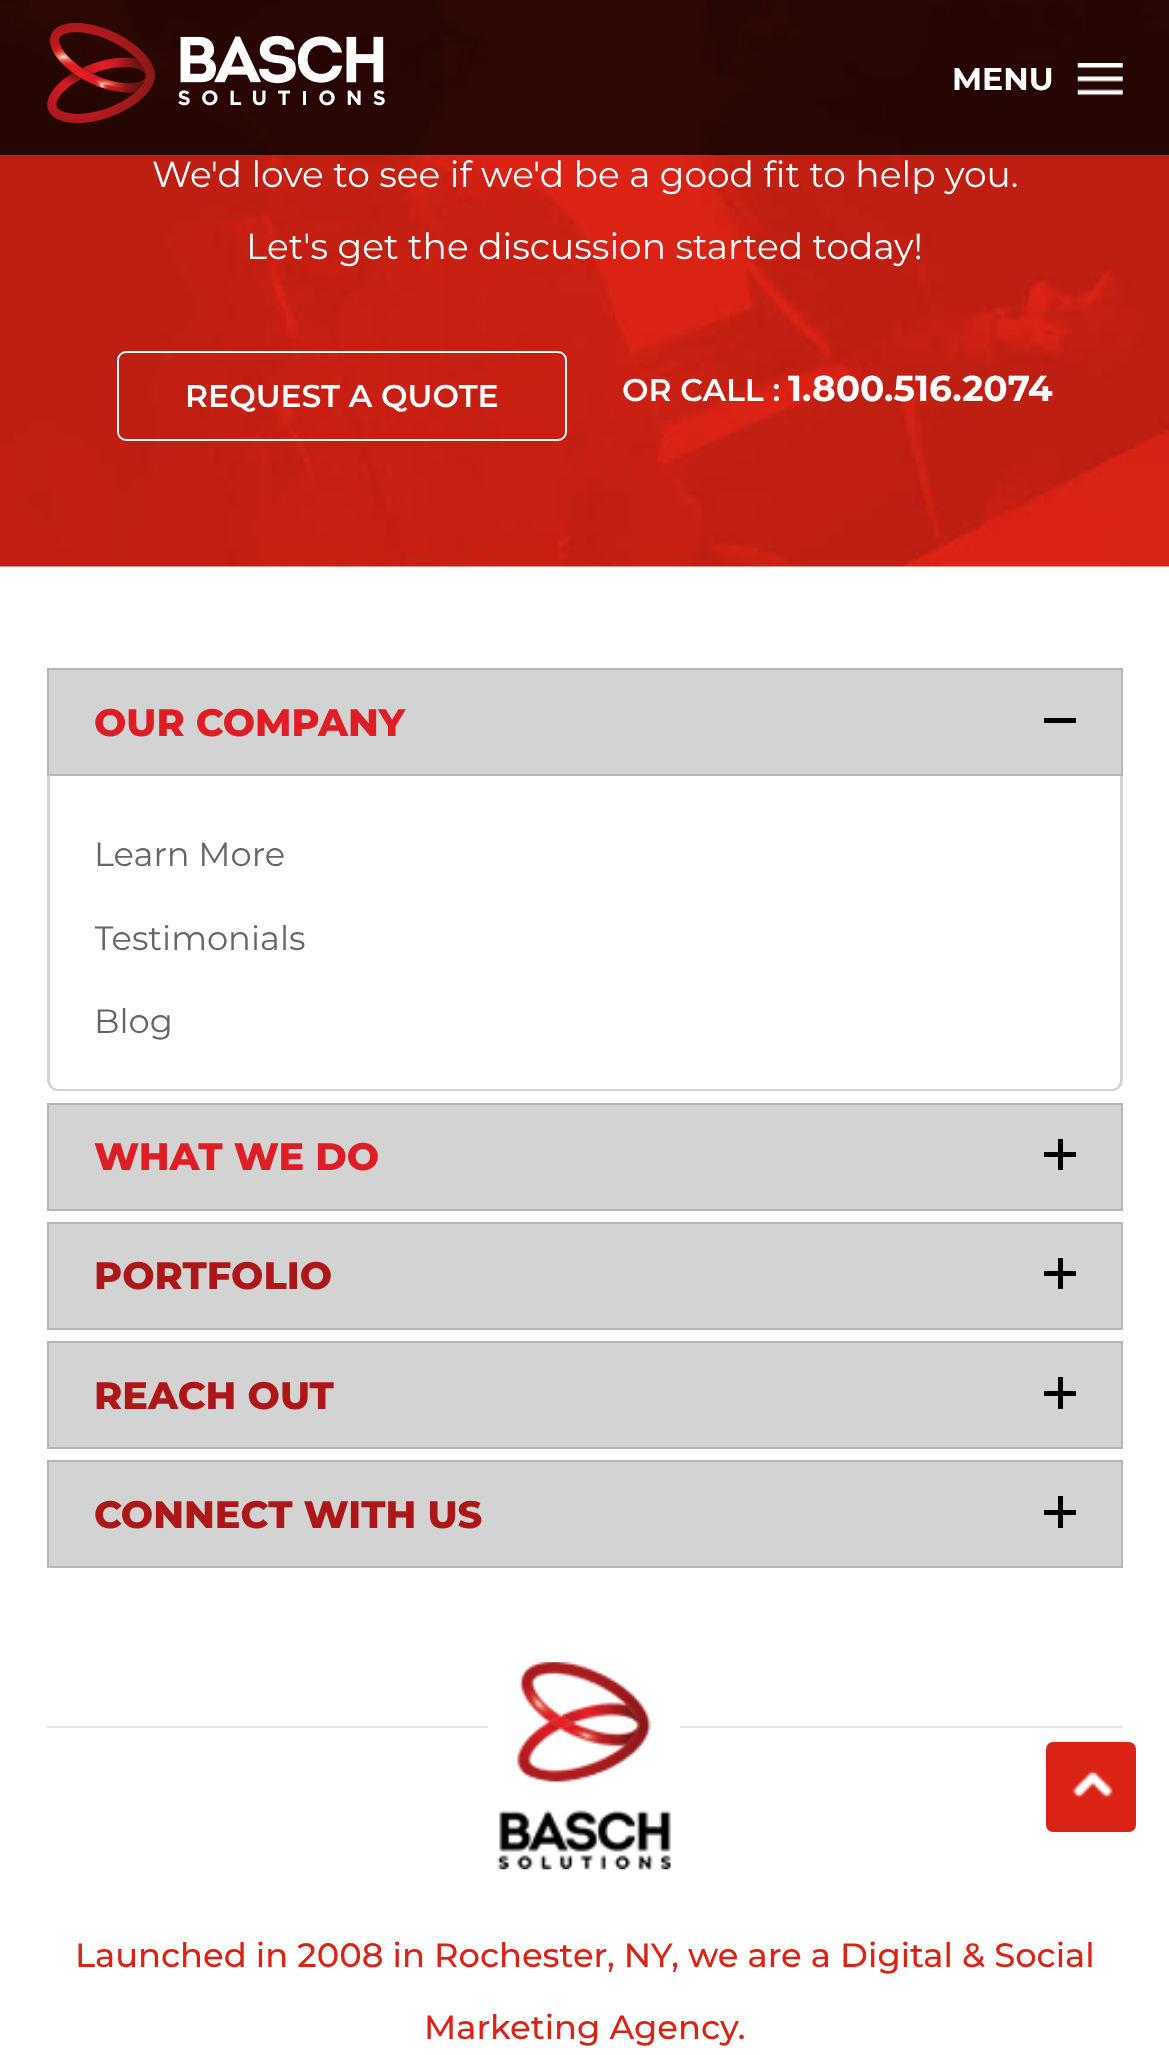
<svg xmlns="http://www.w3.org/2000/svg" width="1169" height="2055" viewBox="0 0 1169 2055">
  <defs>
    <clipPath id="clip1"><rect x="95" y="905" width="218" height="65"/></clipPath>
  </defs>
  <rect width="100%" height="100%" fill="#ffffff"/>
  <image x="0" y="0" width="1169" height="567" href="img3.png"/>
  <rect x="0" y="0" width="1169" height="155" fill="#000000" fill-opacity="0.8"/>
  <image x="47" y="23" width="338" height="101" href="img1.png"/>
  <text x="952" y="90" font-family="Montserrat" font-size="31.5" font-weight="bold" fill="#ffffff">MENU</text>
  <image x="1077" y="63" width="46" height="33" href="img2.png"/>
  <text x="152" y="187" font-family="Montserrat" font-size="36" fill="#ffffff">We'd love to see if we'd be a good fit to help you.</text>
  <text x="246" y="259" font-family="Montserrat" font-size="36" fill="#ffffff">Let's get the discussion started today!</text>
  <rect x="118" y="352" width="448" height="88" rx="8" fill="none" stroke="#ffffff" stroke-width="2"/>
  <text x="185" y="407" font-family="Montserrat" font-size="31.5" font-weight="600" fill="#ffffff">REQUEST A QUOTE</text>
  <text x="622" y="401" font-family="Montserrat" font-size="31.5" font-weight="600" fill="#ffffff">OR CALL :</text>
  <text x="788" y="401" font-family="Montserrat" font-size="36" font-weight="bold" fill="#ffffff">1.800.516.2074</text>
  <rect x="48" y="669" width="1074" height="106" fill="#d3d3d3" stroke="#b5b5b5" stroke-width="2"/>
  <text x="94" y="736" font-family="Montserrat" font-size="38.25" font-weight="800" fill="#df1d24">OUR COMPANY</text>
  <rect x="1044" y="718" width="32" height="5" fill="#000000"/>
  <path d="M47 776H1123V1080C1123 1086 1118 1091 1112 1091H58C52 1091 47 1086 47 1080ZM50 776H1120V1080C1120 1085 1116 1089 1112 1089H58C54 1089 50 1085 50 1080Z" fill="#d3d3d3" fill-rule="evenodd"/>
  <text x="94" y="866" font-family="Montserrat" font-size="33.75" fill="#666666">Learn More</text>
  <g clip-path="url(#clip1)">
    <text x="94" y="950" font-family="Montserrat" font-size="33.75" fill="#666666">Testimonials</text>
  </g>
  <text x="94" y="1033" font-family="Montserrat" font-size="33.75" fill="#666666">Blog</text>
  <rect x="48" y="1104" width="1074" height="106" fill="#d3d3d3" stroke="#b5b5b5" stroke-width="2"/>
  <text x="94" y="1170" font-family="Montserrat" font-size="38.25" font-weight="800" fill="#df1d24">WHAT WE DO</text>
  <rect x="1044" y="1152" width="32" height="5" fill="#000000"/>
  <rect x="1058" y="1139" width="5" height="31" fill="#000000"/>
  <rect x="48" y="1223" width="1074" height="106" fill="#d3d3d3" stroke="#b5b5b5" stroke-width="2"/>
  <text x="94" y="1289" font-family="Montserrat" font-size="38.25" font-weight="800" fill="#ad1717">PORTFOLIO</text>
  <rect x="1044" y="1271" width="32" height="5" fill="#000000"/>
  <rect x="1058" y="1258" width="5" height="31" fill="#000000"/>
  <rect x="48" y="1342" width="1074" height="106" fill="#d3d3d3" stroke="#b5b5b5" stroke-width="2"/>
  <text x="94" y="1409" font-family="Montserrat" font-size="38.25" font-weight="800" fill="#ad1717">REACH OUT</text>
  <rect x="1044" y="1391" width="32" height="5" fill="#000000"/>
  <rect x="1058" y="1377" width="5" height="32" fill="#000000"/>
  <rect x="48" y="1461" width="1074" height="106" fill="#d3d3d3" stroke="#b5b5b5" stroke-width="2"/>
  <text x="94" y="1528" font-family="Montserrat" font-size="38.25" font-weight="800" fill="#ad1717">CONNECT WITH US</text>
  <rect x="1044" y="1510" width="32" height="5" fill="#000000"/>
  <rect x="1058" y="1496" width="5" height="32" fill="#000000"/>
  <rect x="47" y="1726" width="1076" height="2" fill="#e5e5e5"/>
  <rect x="488" y="1726" width="192" height="2" fill="#ffffff"/>
  <image x="497" y="1662" width="174" height="208" href="img4.png"/>
  <text x="75" y="1967" font-family="Montserrat" font-size="33.75" font-weight="500" fill="#da2315">Launched in 2008 in Rochester, NY, we are a Digital &amp; Social</text>
  <text x="424" y="2039" font-family="Montserrat" font-size="33.75" font-weight="500" fill="#da2315">Marketing Agency.</text>
  <rect x="1046" y="1742" width="90" height="90" rx="7" fill="#da2315"/>
  <image x="1072" y="1770" width="41" height="28" href="img5.png"/>
</svg>
